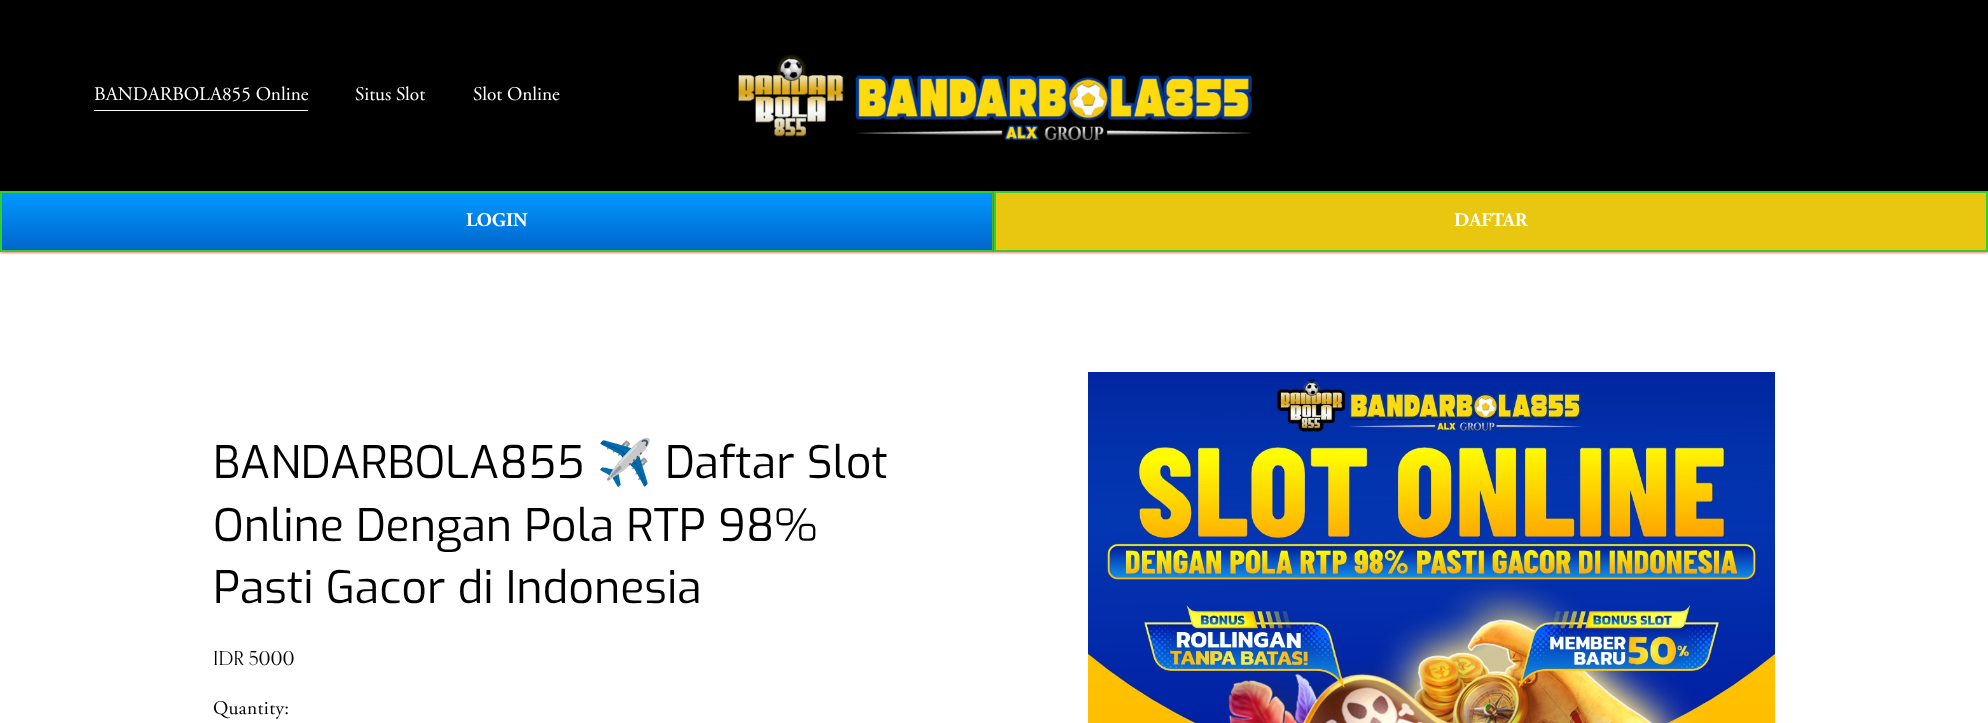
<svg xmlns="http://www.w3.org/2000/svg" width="1988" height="723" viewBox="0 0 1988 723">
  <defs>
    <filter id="blur1" x="-50%" y="-200%" width="200%" height="500%"><feGaussianBlur stdDeviation="1.5"/></filter>
    <linearGradient id="g1" gradientUnits="userSpaceOnUse" x1="497" y1="193" x2="497" y2="250"><stop offset="0" stop-color="#0099ff"/><stop offset="1" stop-color="#0066cc"/></linearGradient>
  </defs>
  <rect width="100%" height="100%" fill="#ffffff"/>
  <rect x="0" y="191" width="994" height="61" fill="#ff0000" filter="url(#blur1)"/>
  <rect x="2" y="193" width="990" height="57" fill="url(#g1)"/>
  <rect x="1" y="192" width="992" height="59" fill="none" stroke="#32cd32" stroke-width="2"/>
  <rect x="994" y="191" width="994" height="61" fill="#ff0000" filter="url(#blur1)"/>
  <rect x="0" y="0" width="1988" height="191" fill="#000000"/>
  <rect x="94" y="110" width="214" height="1" fill="#ffffff"/>
  <text x="94" y="100" font-family="Adobe Garamond" font-size="19.25" fill="#ffffff">BANDARBOLA855 Online</text>
  <text x="355" y="100" font-family="Adobe Garamond" font-size="19.25" fill="#ffffff">Situs Slot</text>
  <text x="473" y="100" font-family="Adobe Garamond" font-size="19.25" fill="#ffffff">Slot Online</text>
  <image x="738" y="54" width="514" height="87" href="img1.png"/>
  <text x="466" y="226" font-family="Adobe Garamond" font-size="19.25" font-weight="bold" fill="#ffffff">LOGIN</text>
  <rect x="995" y="192" width="992" height="59" fill="#e9c610" stroke="#32cd32" stroke-width="2"/>
  <text x="1454" y="226" font-family="Adobe Garamond" font-size="19.25" font-weight="bold" fill="#ffffff">DAFTAR</text>
  <text x="213" y="478" font-family="Exo" font-size="44.75" fill="#000000">BANDARBOLA855</text>
  <text x="597" y="478" font-family="Noto Color Emoji" font-size="44.75" fill="#000000">✈️</text>
  <text x="665" y="478" font-family="Exo" font-size="44.75" fill="#000000">Daftar Slot</text>
  <text x="213" y="541" font-family="Exo" font-size="44.75" fill="#000000">Online Dengan Pola RTP 98%</text>
  <text x="213" y="603" font-family="Exo" font-size="44.75" fill="#000000">Pasti Gacor di Indonesia</text>
  <text x="213" y="665" font-family="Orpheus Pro" font-size="19.25" fill="#000000">IDR 5000</text>
  <text x="213" y="714" font-family="Adobe Garamond" font-size="19.25" letter-spacing="0.4" fill="#000000">Quantity:</text>
  <image x="1088" y="372" width="687" height="351" href="img2.png"/>
</svg>
